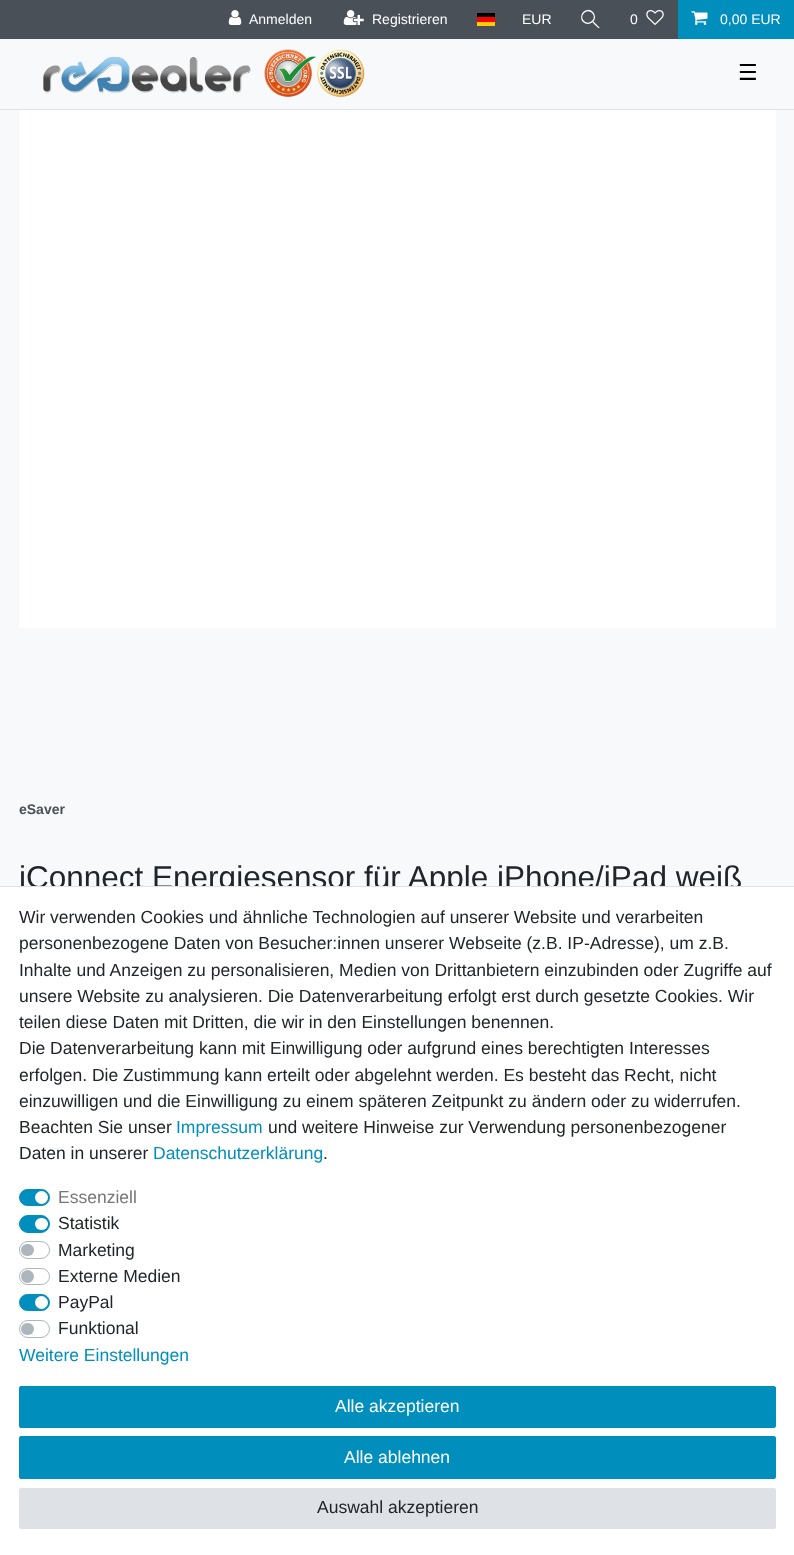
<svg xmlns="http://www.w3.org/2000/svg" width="794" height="1555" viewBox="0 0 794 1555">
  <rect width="100%" height="100%" fill="#f8f9fa"/>
  <rect x="0" y="0" width="678" height="39" fill="#495057"/>
  <image x="228" y="10" width="14" height="15" href="img1.png"/>
  <text x="249" y="24" font-family="Liberation Sans" font-size="14" fill="#ffffff">Anmelden</text>
  <image x="343" y="10" width="21" height="15" href="img2.png"/>
  <text x="372" y="24" font-family="Liberation Sans" font-size="14" fill="#ffffff">Registrieren</text>
  <rect x="477" y="22" width="18" height="4" fill="#ffcc00"/>
  <rect x="477" y="13" width="18" height="4" fill="#000000"/>
  <rect x="477" y="17" width="18" height="5" fill="#ff0000"/>
  <text x="522" y="24" font-family="Liberation Sans" font-size="14" fill="#ffffff">EUR</text>
  <path d="M598.5 28C596.5 26.5 585.5 15.5 586 15L586.5 14.5L599.5 27.5C599.5 28 599 28.5 598.5 28Z" fill="#ffffff"/>
  <path d="M583.5 22C577 15.5 586.5 5.5 593 12C599.5 18.5 589.5 28 583.5 22Z" fill="#495057"/>
  <path d="M583.5 21.5C578 15.5 586.5 6.5 592.5 12.5C598.5 18.5 589.5 27 583.5 21.5Z" fill="none" stroke="#ffffff" stroke-width="1.3"/>
  <text x="630" y="24" font-family="Liberation Sans" font-size="14" fill="#ffffff">0</text>
  <image x="646" y="10" width="18" height="15" href="img3.png"/>
  <rect x="678" y="0" width="116" height="39" fill="#008ebd"/>
  <image x="691" y="11" width="17" height="14" href="img4.png"/>
  <text x="720" y="24" font-family="Liberation Sans" font-size="14" fill="#ffffff">0,00 EUR</text>
  <rect x="0" y="109" width="794" height="1" fill="#dee2e6"/>
  <image x="43" y="49" width="322" height="49" href="img5.png"/>
  <text x="738" y="80" font-family="DejaVu Sans" font-size="22" fill="#000000">☰</text>
  <rect x="19" y="110" width="757" height="518" fill="#ffffff"/>
  <text x="19" y="814" font-family="Liberation Sans" font-size="14" font-weight="bold" fill="#495057">eSaver</text>
  <text x="19" y="888" font-family="Liberation Sans" font-size="31.5" fill="#212529">iConnect Energiesensor für Apple iPhone/iPad weiß</text>
  <rect x="0" y="887" width="794" height="668" fill="#ffffff"/>
  <rect x="0" y="886" width="794" height="1" fill="#dee2e6"/>
  <text x="19" y="923" font-family="Liberation Sans" font-size="17.5" fill="#212529">Wir verwenden Cookies und ähnliche Technologien auf unserer Website und verarbeiten</text>
  <text x="19" y="949" font-family="Liberation Sans" font-size="17.5" fill="#212529">personenbezogene Daten von Besucher:innen unserer Webseite (z.B. IP-Adresse), um z.B.</text>
  <text x="19" y="976" font-family="Liberation Sans" font-size="17.5" fill="#212529">Inhalte und Anzeigen zu personalisieren, Medien von Drittanbietern einzubinden oder Zugriffe auf</text>
  <text x="19" y="1002" font-family="Liberation Sans" font-size="17.5" fill="#212529">unsere Website zu analysieren. Die Datenverarbeitung erfolgt erst durch gesetzte Cookies. Wir</text>
  <text x="19" y="1028" font-family="Liberation Sans" font-size="17.5" fill="#212529">teilen diese Daten mit Dritten, die wir in den Einstellungen benennen.</text>
  <text x="19" y="1054" font-family="Liberation Sans" font-size="17.5" fill="#212529">Die Datenverarbeitung kann mit Einwilligung oder aufgrund eines berechtigten Interesses</text>
  <text x="19" y="1081" font-family="Liberation Sans" font-size="17.5" fill="#212529">erfolgen. Die Zustimmung kann erteilt oder abgelehnt werden. Es besteht das Recht, nicht</text>
  <text x="19" y="1107" font-family="Liberation Sans" font-size="17.5" fill="#212529">einzuwilligen und die Einwilligung zu einem späteren Zeitpunkt zu ändern oder zu widerrufen.</text>
  <text x="19" y="1133" font-family="Liberation Sans" font-size="17.5" fill="#212529">Beachten Sie unser</text>
  <text x="176" y="1133" font-family="Liberation Sans" font-size="17.5" fill="#008ebd">Impressum</text>
  <text x="268" y="1133" font-family="Liberation Sans" font-size="17.5" fill="#212529">und weitere Hinweise zur Verwendung personenbezogener</text>
  <text x="19" y="1159" font-family="Liberation Sans" font-size="17.5" fill="#212529">Daten in unserer</text>
  <text x="153" y="1159" font-family="Liberation Sans" font-size="17.5" fill="#008ebd">Datenschutzerklärung</text>
  <text x="323" y="1159" font-family="Liberation Sans" font-size="17.5" fill="#212529">.</text>
  <rect x="19.5" y="1189.5" width="30" height="16" rx="8" fill="#008ebd" stroke="#008ebd"/>
  <text x="58" y="1203" font-family="Liberation Sans" font-size="17.5" fill="#767676">Essenziell</text>
  <circle cx="41.5" cy="1197.5" r="6.5" fill="#ffffff"/>
  <rect x="19.5" y="1215.5" width="30" height="17" rx="8.5" fill="#008ebd" stroke="#008ebd"/>
  <text x="58" y="1229" font-family="Liberation Sans" font-size="17.5" fill="#212529">Statistik</text>
  <rect x="35" y="1218" width="13" height="12" rx="6" fill="#ffffff"/>
  <rect x="19.5" y="1241.5" width="30" height="17" rx="8.5" fill="none" stroke="#adb5bd"/>
  <text x="58" y="1256" font-family="Liberation Sans" font-size="17.5" fill="#212529">Marketing</text>
  <rect x="21" y="1244" width="13" height="12" rx="6" fill="#adb5bd"/>
  <rect x="19.5" y="1268.5" width="30" height="16" rx="8" fill="none" stroke="#adb5bd"/>
  <text x="58" y="1282" font-family="Liberation Sans" font-size="17.5" fill="#212529">Externe Medien</text>
  <circle cx="27.5" cy="1276.5" r="6.5" fill="#adb5bd"/>
  <rect x="19.5" y="1294.5" width="30" height="16" rx="8" fill="#008ebd" stroke="#008ebd"/>
  <text x="58" y="1308" font-family="Liberation Sans" font-size="17.5" fill="#212529">PayPal</text>
  <circle cx="41.5" cy="1302.5" r="6.5" fill="#ffffff"/>
  <rect x="19.5" y="1320.5" width="30" height="17" rx="8.5" fill="none" stroke="#adb5bd"/>
  <text x="58" y="1334" font-family="Liberation Sans" font-size="17.5" fill="#212529">Funktional</text>
  <rect x="21" y="1323" width="13" height="12" rx="6" fill="#adb5bd"/>
  <text x="19" y="1361" font-family="Liberation Sans" font-size="17.5" fill="#008ebd">Weitere Einstellungen</text>
  <rect x="19.5" y="1386.5" width="756" height="41" rx="1.5" fill="#008ebd" stroke="#008ebd"/>
  <text x="335" y="1412" font-family="Liberation Sans" font-size="17.5" fill="#ffffff">Alle akzeptieren</text>
  <rect x="19.5" y="1436.5" width="756" height="42" rx="1.5" fill="#008ebd" stroke="#008ebd"/>
  <text x="344" y="1463" font-family="Liberation Sans" font-size="17.5" fill="#ffffff">Alle ablehnen</text>
  <rect x="19.5" y="1488.5" width="756" height="40" rx="1.5" fill="#dee2e6" stroke="#dee2e6"/>
  <text x="317" y="1513" font-family="Liberation Sans" font-size="17.5" fill="#212529">Auswahl akzeptieren</text>
</svg>
